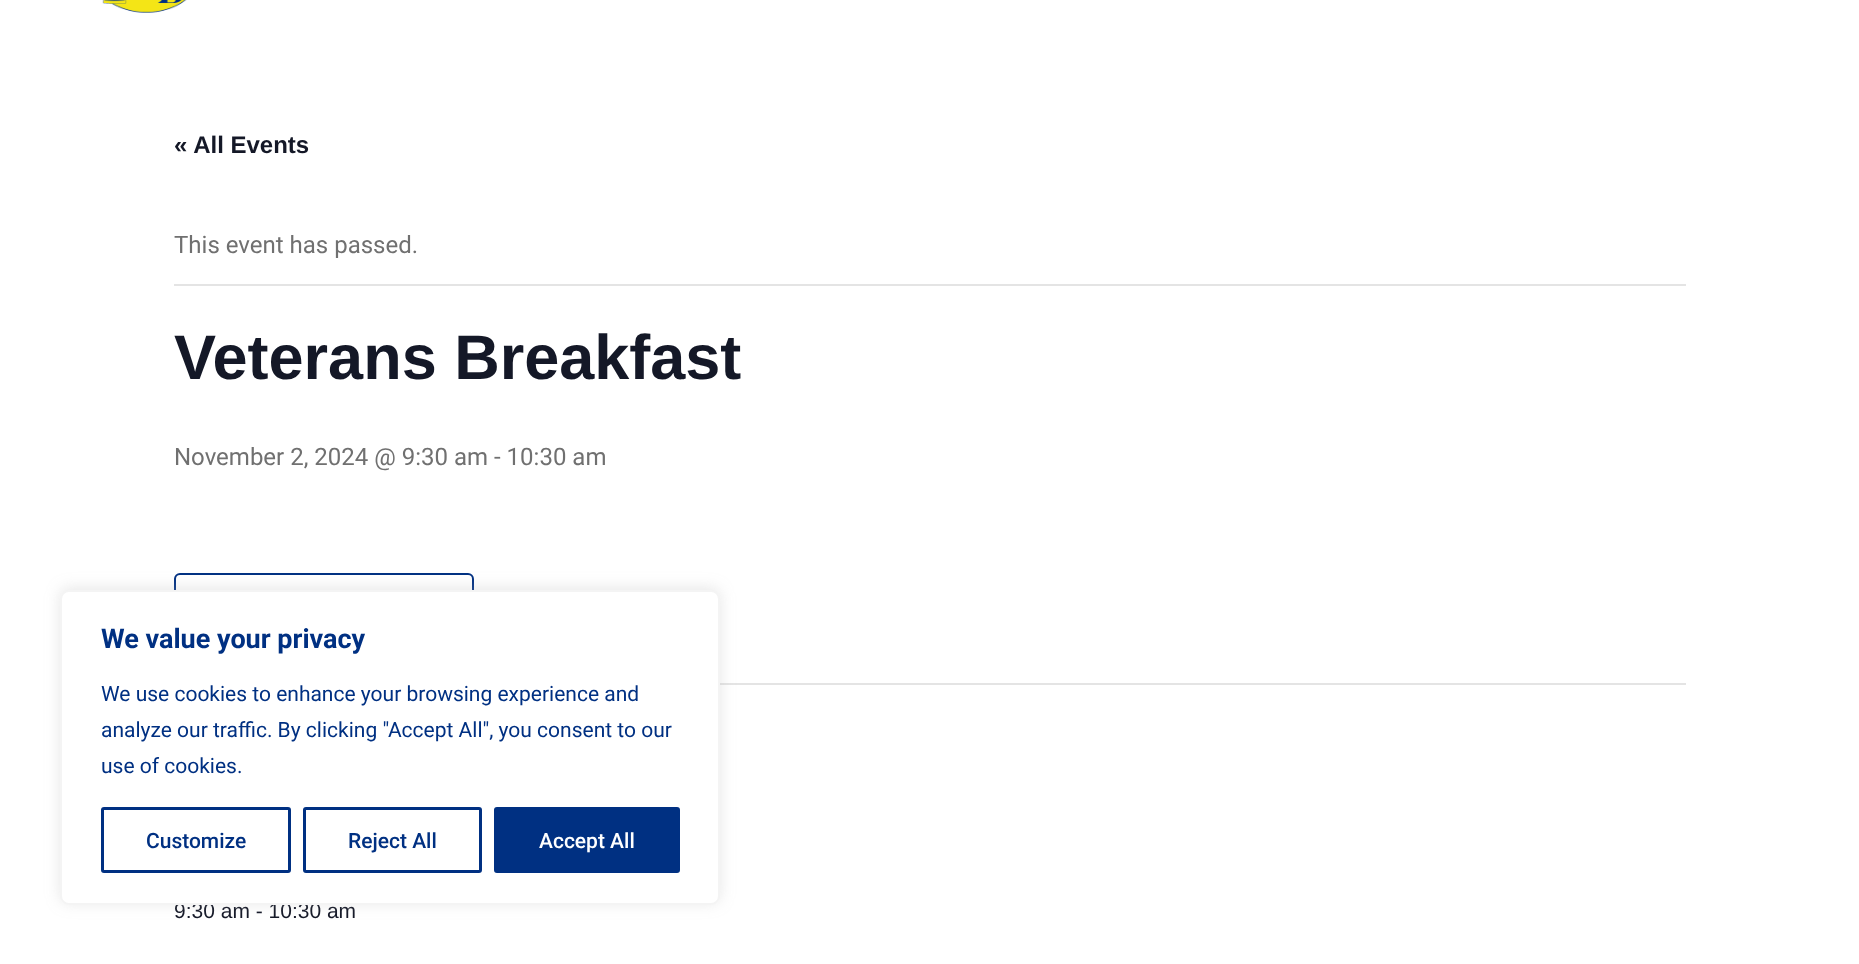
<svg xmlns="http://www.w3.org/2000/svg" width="1859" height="964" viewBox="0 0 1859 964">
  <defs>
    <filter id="blur1" x="-50%" y="-200%" width="200%" height="500%"><feGaussianBlur stdDeviation="7.5"/></filter>
  </defs>
  <rect width="100%" height="100%" fill="#ffffff"/>
  <image x="102" y="0" width="85" height="13" href="img1.png"/>
  <text x="174" y="153" font-family="Liberation Sans" font-size="24" font-weight="bold" fill="#141827">« All Events</text>
  <rect x="174" y="284" width="1512" height="2" fill="#e4e4e4"/>
  <text x="174" y="253" font-family="Roboto" font-size="24" fill="#707070">This event has passed.</text>
  <text x="174" y="379" font-family="Liberation Sans" font-size="63" font-weight="bold" fill="#141827">Veterans Breakfast</text>
  <text x="174" y="465" font-family="Roboto" font-size="24" fill="#707070">November 2, 2024 @ 9:30 am - 10:30 am</text>
  <rect x="175" y="574" width="298" height="60" rx="5" fill="none" stroke="#003082" stroke-width="2"/>
  <rect x="720" y="683" width="966" height="2" fill="#e4e4e4"/>
  <text x="174" y="918" font-family="Liberation Sans" font-size="21" fill="#141827">9:30 am - 10:30 am</text>
  <rect x="60" y="588" width="660" height="315" rx="9" fill="#acabab" fill-opacity="0.3" filter="url(#blur1)"/>
  <rect x="61" y="591" width="658" height="313" rx="8" fill="#ffffff" stroke="#f4f4f4" stroke-width="2"/>
  <text x="101" y="648" font-family="Roboto" font-size="27" font-weight="bold" fill="#003082">We value your privacy</text>
  <text x="101" y="701" font-family="Roboto" font-size="21" fill="#003082">We use cookies to enhance your browsing experience and</text>
  <text x="101" y="737" font-family="Roboto" font-size="21" fill="#003082">analyze our traffic. By clicking "Accept All", you consent to our</text>
  <text x="101" y="773" font-family="Roboto" font-size="21" fill="#003082">use of cookies.</text>
  <rect x="102.5" y="808.5" width="187" height="63" rx="1.5" fill="none" stroke="#003082" stroke-width="3"/>
  <text x="146" y="848" font-family="Roboto" font-size="21" font-weight="500" fill="#003082">Customize</text>
  <rect x="304.5" y="808.5" width="176" height="63" rx="1.5" fill="none" stroke="#003082" stroke-width="3"/>
  <text x="348" y="848" font-family="Roboto" font-size="21" font-weight="500" fill="#003082">Reject All</text>
  <rect x="495.5" y="808.5" width="183" height="63" rx="1.5" fill="#003082" stroke="#003082" stroke-width="3"/>
  <text x="539" y="848" font-family="Roboto" font-size="21" font-weight="500" fill="#ffffff">Accept All</text>
</svg>
